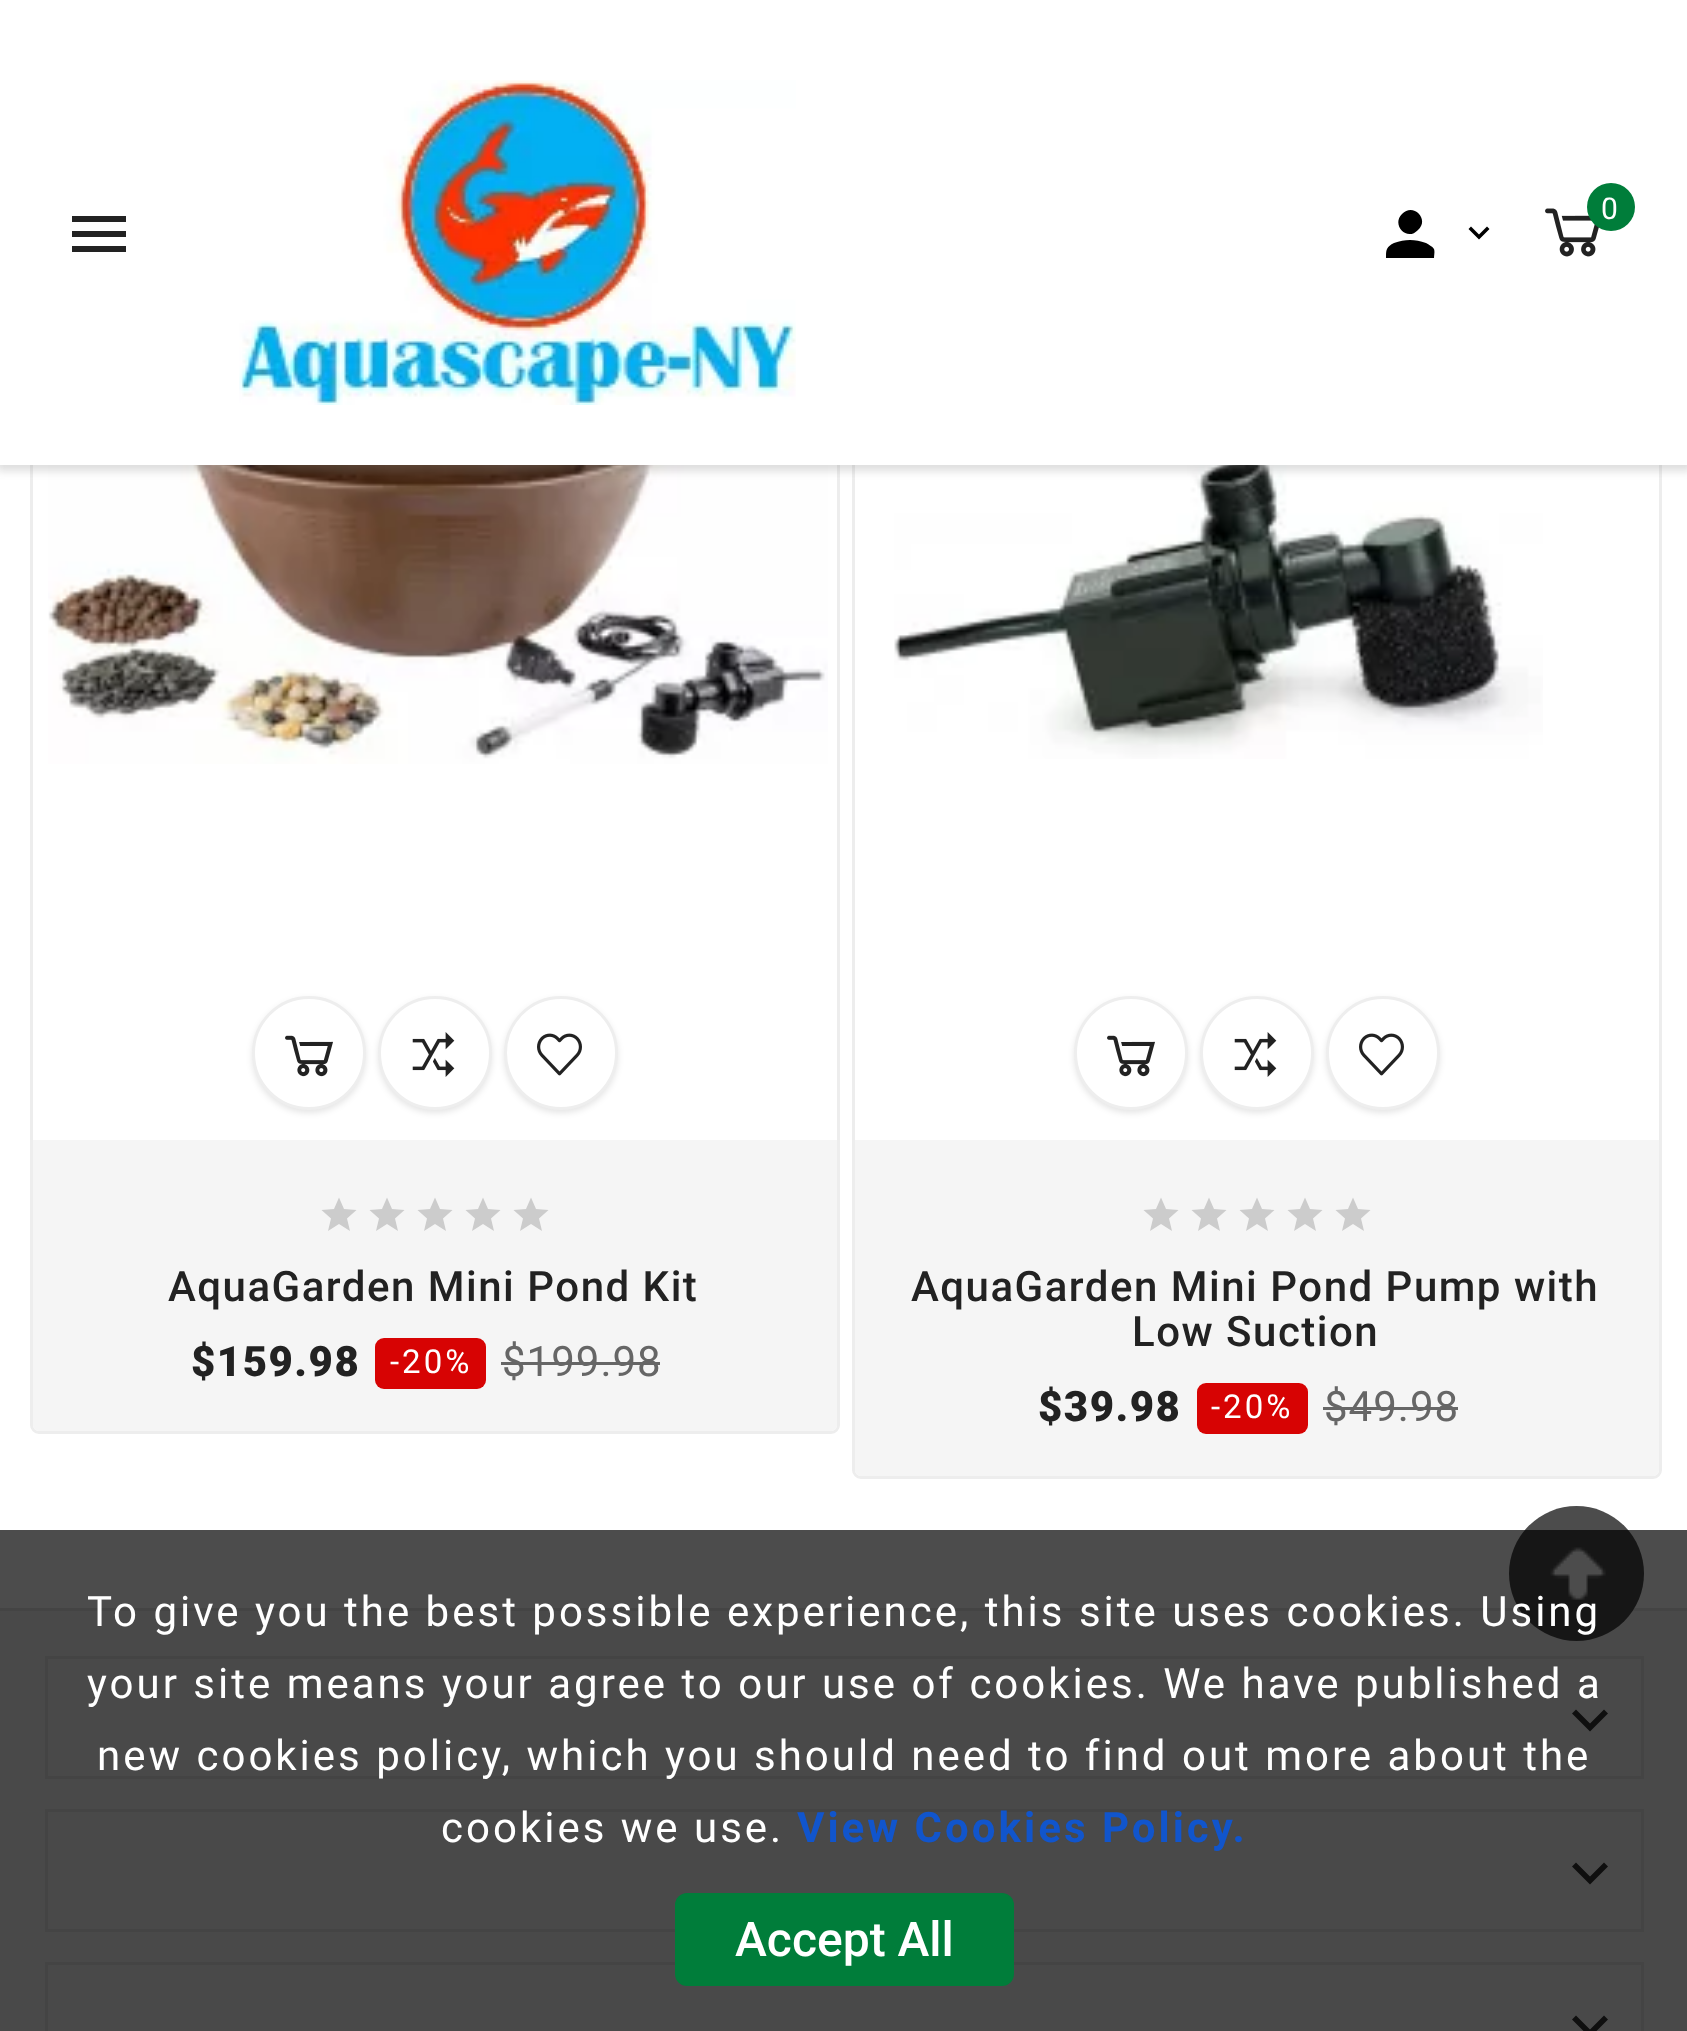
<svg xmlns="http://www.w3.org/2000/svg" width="1687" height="2031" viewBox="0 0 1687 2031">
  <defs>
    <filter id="blur1" x="-50%" y="-200%" width="200%" height="500%"><feGaussianBlur stdDeviation="4.5"/></filter>
    <filter id="blur2" x="-50%" y="-200%" width="200%" height="500%"><feGaussianBlur stdDeviation="3"/></filter>
  </defs>
  <rect width="100%" height="100%" fill="#ffffff"/>
  <rect x="31.5" y="190.5" width="807" height="1242" rx="7.5" fill="none" stroke="#ededed" stroke-width="3"/>
  <image x="48" y="465" width="780" height="299" href="img3.png"/>
  <rect x="853.5" y="190.5" width="807" height="1287" rx="7.5" fill="none" stroke="#ededed" stroke-width="3"/>
  <image x="894" y="465" width="649" height="294" href="img7.png"/>
  <rect x="-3" y="0" width="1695" height="471" fill="#808080" fill-opacity="0.27" filter="url(#blur1)"/>
  <rect x="0" y="0" width="1687" height="465" fill="#ffffff"/>
  <image x="239" y="80" width="557" height="325" href="img1.png"/>
  <path d="M1394 243C1405 239 1415 239 1426 243C1429 245 1432 246 1434 249C1435 252 1434 255 1434 258H1386C1386 250 1386 247 1394 243ZM1418 230C1407 242 1391 225 1402 214C1413 202 1430 219 1418 230Z" fill="#000000"/>
  <path d="M1471 226.5L1479 234.5L1487 226.5L1489.5 229L1479 239.5L1468.5 229Z" fill="#000000"/>
  <image x="1545" y="208" width="54" height="49" href="img2.png"/>
  <circle cx="1611" cy="207" r="24" fill="#007d3a"/>
  <text x="1601" y="219" font-family="Roboto" font-size="30" letter-spacing="3" fill="#ffffff">0</text>
  <path d="M72 216H126V222H72ZM72 237V231H126V237ZM72 252V246H126V252Z" fill="#222222"/>
  <rect x="252" y="999" width="114" height="114" rx="57" fill="#000000" fill-opacity="0.1" filter="url(#blur2)"/>
  <circle cx="309" cy="1053" r="55.5" fill="#ffffff" stroke="#eeeeee" stroke-width="3"/>
  <image x="285" y="1035" width="48" height="42" href="img4.png"/>
  <rect x="378" y="999" width="114" height="114" rx="57" fill="#000000" fill-opacity="0.1" filter="url(#blur2)"/>
  <circle cx="435" cy="1053" r="55.5" fill="#ffffff" stroke="#eeeeee" stroke-width="3"/>
  <image x="412" y="1032" width="43" height="45" href="img5.png"/>
  <rect x="504" y="999" width="114" height="114" rx="57" fill="#000000" fill-opacity="0.1" filter="url(#blur2)"/>
  <circle cx="561" cy="1053" r="55.5" fill="#ffffff" stroke="#eeeeee" stroke-width="3"/>
  <image x="537" y="1033" width="45" height="43" href="img6.png"/>
  <path d="M33 1140H837V1425C837 1428.5 834.5 1431 831 1431H39C35.5 1431 33 1428.5 33 1425Z" fill="#f5f5f5"/>
  <path d="M339 1224L328 1231L331 1218.5L321.5 1210L334 1209L339 1197.5L344 1209L356.5 1210L347 1218.5L350 1231Z" fill="#cccccc"/>
  <path d="M387 1224L376 1231L379 1218.5L369.5 1210L382 1209L387 1197.5L392 1209L404.5 1210L395 1218.5L398 1231Z" fill="#cccccc"/>
  <path d="M435 1224L424 1231L427 1218.5L417.5 1210L430 1209L435 1197.5L440 1209L452.5 1210L443 1218.5L446 1231Z" fill="#cccccc"/>
  <path d="M483 1224L472 1231L475 1218.5L465.5 1210L478 1209L483 1197.5L488 1209L500.5 1210L491 1218.5L494 1231Z" fill="#cccccc"/>
  <path d="M531 1224L520 1231L523 1218.5L513.5 1210L526 1209L531 1197.5L536 1209L548.5 1210L539 1218.5L542 1231Z" fill="#cccccc"/>
  <text x="168" y="1301" font-family="Roboto" font-size="42" font-weight="500" letter-spacing="1.5" fill="#222222">AquaGarden Mini Pond Kit</text>
  <text x="191" y="1376" font-family="Roboto" font-size="42" font-weight="900" letter-spacing="1.5" fill="#222222">$159.98</text>
  <rect x="375" y="1338" width="111" height="51" rx="9" fill="#d70303"/>
  <text x="390" y="1373" font-family="Roboto" font-size="33" letter-spacing="3" fill="#ffffff">-20%</text>
  <text x="502" y="1376" font-family="Roboto" font-size="42" letter-spacing="1" fill="#666666">$199.98</text>
  <rect x="501" y="1362" width="159" height="3" fill="#666666"/>
  <rect x="1074" y="999" width="114" height="114" rx="57" fill="#000000" fill-opacity="0.1" filter="url(#blur2)"/>
  <circle cx="1131" cy="1053" r="55.5" fill="#ffffff" stroke="#eeeeee" stroke-width="3"/>
  <image x="1107" y="1035" width="48" height="42" href="img4.png"/>
  <rect x="1200" y="999" width="114" height="114" rx="57" fill="#000000" fill-opacity="0.1" filter="url(#blur2)"/>
  <circle cx="1257" cy="1053" r="55.5" fill="#ffffff" stroke="#eeeeee" stroke-width="3"/>
  <image x="1234" y="1032" width="43" height="45" href="img5.png"/>
  <rect x="1326" y="999" width="114" height="114" rx="57" fill="#000000" fill-opacity="0.1" filter="url(#blur2)"/>
  <circle cx="1383" cy="1053" r="55.5" fill="#ffffff" stroke="#eeeeee" stroke-width="3"/>
  <image x="1359" y="1033" width="45" height="43" href="img6.png"/>
  <path d="M855 1140H1659V1470C1659 1473.5 1656.5 1476 1653 1476H861C857.5 1476 855 1473.5 855 1470Z" fill="#f5f5f5"/>
  <path d="M1161 1224L1150 1231L1153 1218.5L1143.5 1210L1156 1209L1161 1197.5L1166 1209L1178.5 1210L1169 1218.5L1172 1231Z" fill="#cccccc"/>
  <path d="M1209 1224L1198 1231L1201 1218.5L1191.5 1210L1204 1209L1209 1197.5L1214 1209L1226.5 1210L1217 1218.5L1220 1231Z" fill="#cccccc"/>
  <path d="M1257 1224L1246 1231L1249 1218.5L1239.5 1210L1252 1209L1257 1197.5L1262 1209L1274.5 1210L1265 1218.5L1268 1231Z" fill="#cccccc"/>
  <path d="M1305 1224L1294 1231L1297 1218.5L1287.5 1210L1300 1209L1305 1197.5L1310 1209L1322.5 1210L1313 1218.5L1316 1231Z" fill="#cccccc"/>
  <path d="M1353 1224L1342 1231L1345 1218.5L1335.5 1210L1348 1209L1353 1197.5L1358 1209L1370.5 1210L1361 1218.5L1364 1231Z" fill="#cccccc"/>
  <text x="911" y="1301" font-family="Roboto" font-size="42" font-weight="500" letter-spacing="1.5" fill="#222222">AquaGarden Mini Pond Pump with</text>
  <text x="1132" y="1346" font-family="Roboto" font-size="42" font-weight="500" letter-spacing="1.5" fill="#222222">Low Suction</text>
  <text x="1038" y="1421" font-family="Roboto" font-size="42" font-weight="900" letter-spacing="1.5" fill="#222222">$39.98</text>
  <rect x="1197" y="1383" width="111" height="51" rx="9" fill="#d70303"/>
  <text x="1211" y="1418" font-family="Roboto" font-size="33" letter-spacing="3" fill="#ffffff">-20%</text>
  <text x="1324" y="1421" font-family="Roboto" font-size="42" letter-spacing="1" fill="#666666">$49.98</text>
  <rect x="1323" y="1407" width="135" height="3" fill="#666666"/>
  <rect x="0" y="1611" width="1687" height="420" fill="#f5f5f5"/>
  <rect x="0" y="1608" width="1687" height="3" fill="#e4e4e4"/>
  <circle cx="1576.5" cy="1573.5" r="67.5" fill="#4c4c4c"/>
  <image x="1550" y="1547" width="56" height="53" href="img8.png"/>
  <rect x="46.5" y="1657.5" width="1596" height="120" fill="none" stroke="#e4e4e4" stroke-width="3"/>
  <path d="M1576 1709.5L1590 1723.5L1604 1709.5L1608 1713.5L1590 1731.5L1572 1713.5Z" fill="#333333"/>
  <rect x="46.5" y="1810.5" width="1596" height="120" fill="none" stroke="#e4e4e4" stroke-width="3"/>
  <path d="M1576 1862.5L1590 1876.5L1604 1862.5L1608 1866.5L1590 1884.5L1572 1866.5Z" fill="#333333"/>
  <rect x="46.5" y="1963.5" width="1596" height="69" fill="none" stroke="#e4e4e4" stroke-width="3"/>
  <path d="M1576 2015.5L1590 2029.5L1604 2015.5L1608 2019.5L1590 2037.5L1572 2019.5Z" fill="#333333"/>
  <rect x="0" y="1530" width="1687" height="501" fill="#000000" fill-opacity="0.7"/>
  <text x="87" y="1626" font-family="Roboto" font-size="42" letter-spacing="3" fill="#ffffff">To give you the best possible experience, this site uses cookies. Using</text>
  <text x="87" y="1698" font-family="Roboto" font-size="42" letter-spacing="3" fill="#ffffff">your site means your agree to our use of cookies. We have published a</text>
  <text x="97" y="1770" font-family="Roboto" font-size="42" letter-spacing="3" fill="#ffffff">new cookies policy, which you should need to find out more about the</text>
  <text x="441" y="1842" font-family="Roboto" font-size="42" letter-spacing="3" fill="#ffffff">cookies we use.</text>
  <text x="797" y="1842" font-family="Roboto" font-size="42" font-weight="bold" letter-spacing="3" fill="#1155cc">View Cookies Policy.</text>
  <rect x="675" y="1893" width="339" height="93" rx="12" fill="#007d3a"/>
  <text x="735" y="1956" font-family="Roboto" font-size="48" font-weight="500" fill="#ffffff">Accept All</text>
</svg>
